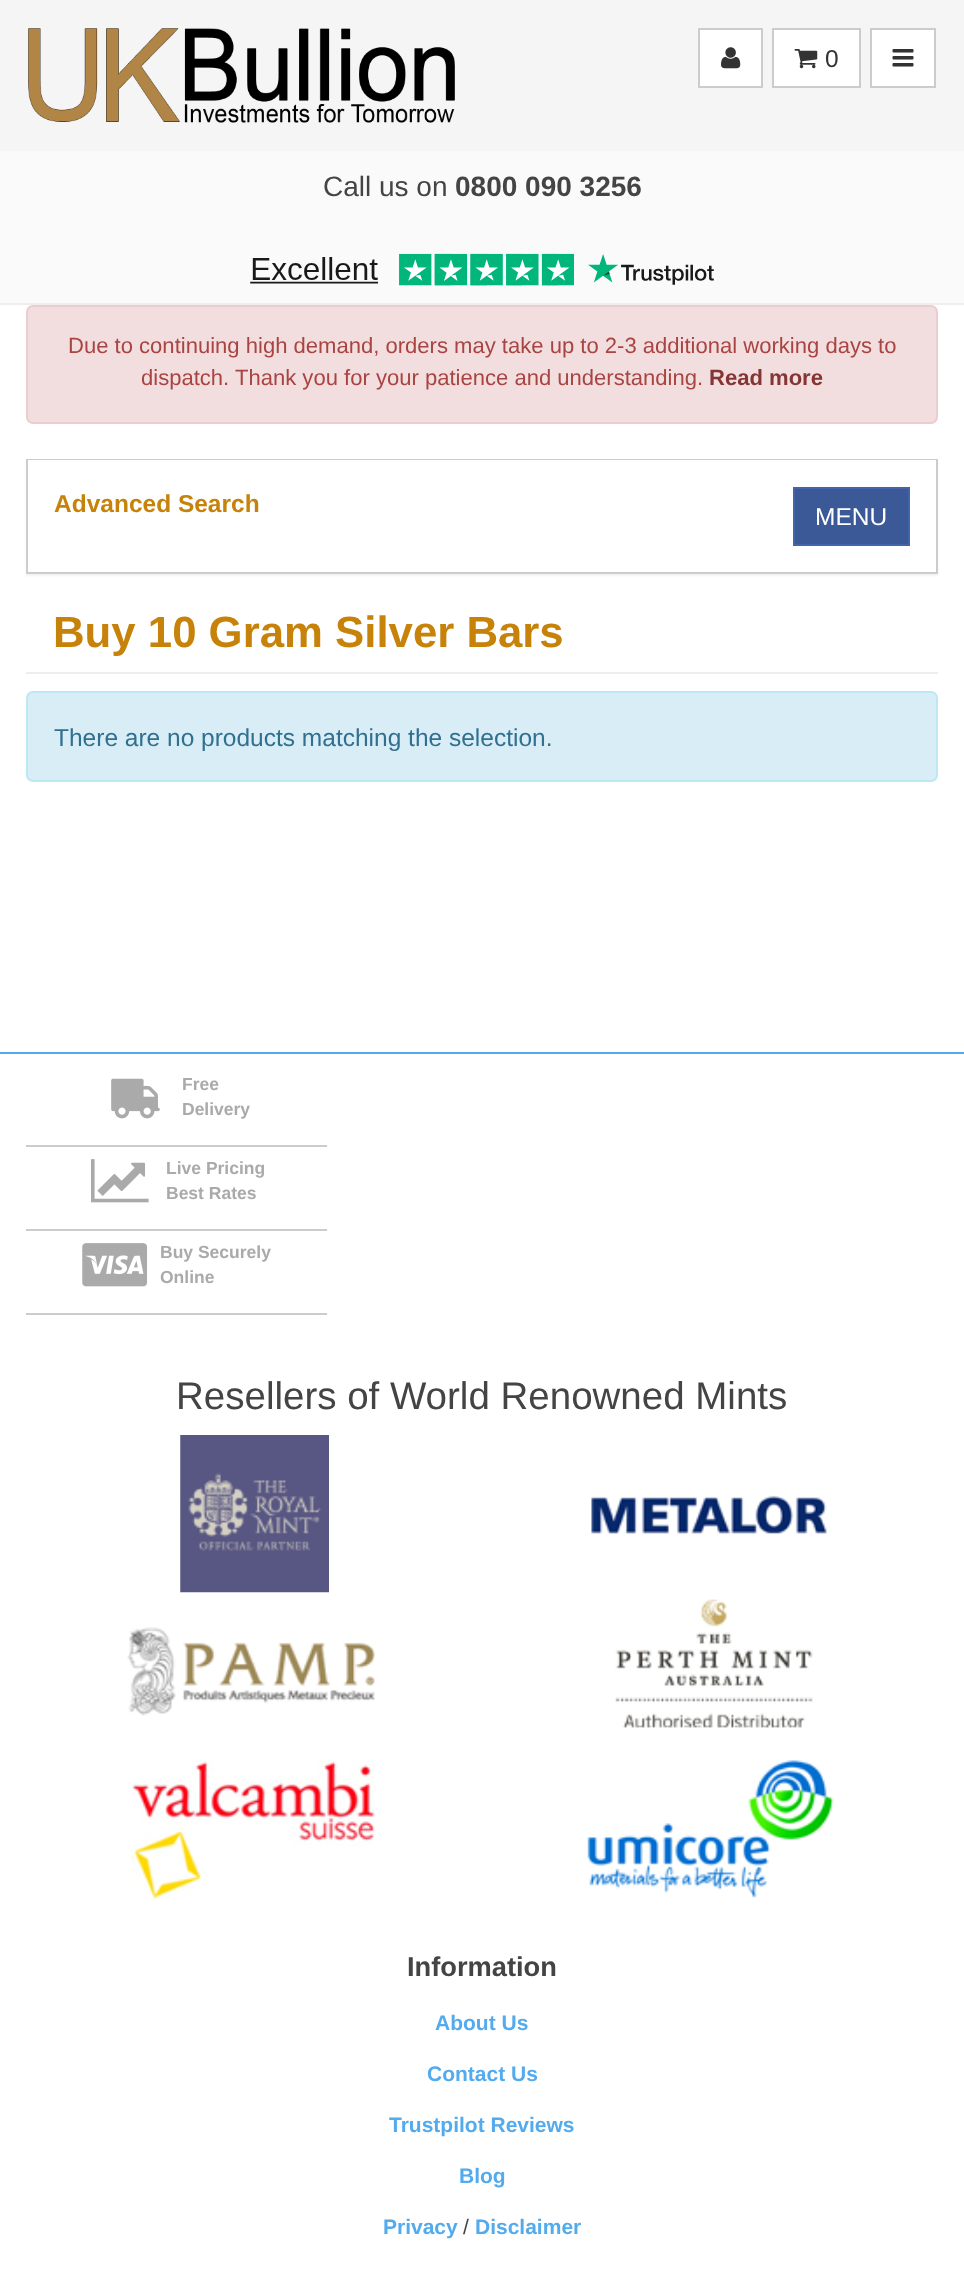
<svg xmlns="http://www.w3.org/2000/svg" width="964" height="2270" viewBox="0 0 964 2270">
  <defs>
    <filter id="blur1" x="-50%" y="-200%" width="200%" height="500%"><feGaussianBlur stdDeviation="1"/></filter>
  </defs>
  <rect width="100%" height="100%" fill="#ffffff"/>
  <rect x="0" y="0" width="964" height="151" fill="#f5f5f5"/>
  <image x="28" y="28" width="427" height="95" href="img1.png"/>
  <rect x="699" y="29" width="63" height="58" fill="#ffffff" stroke="#cccccc" stroke-width="2"/>
  <image x="721" y="47" width="20" height="22" href="img2.png"/>
  <rect x="773" y="29" width="87" height="58" fill="#ffffff" stroke="#cccccc" stroke-width="2"/>
  <image x="794" y="49" width="24" height="20" href="img3.png"/>
  <text x="825" y="67" font-family="Liberation Sans" font-size="24.5" fill="#333333">0</text>
  <rect x="871" y="29" width="64" height="58" fill="#ffffff" stroke="#cccccc" stroke-width="2"/>
  <image x="892" y="49" width="22" height="18" href="img4.png"/>
  <rect x="0" y="151" width="964" height="152" fill="#fafafa"/>
  <rect x="0" y="303" width="964" height="2" fill="#eeeeee"/>
  <text x="323" y="196" font-family="Liberation Sans" font-size="28" fill="#444444">Call us on</text>
  <text x="455" y="196" font-family="Liberation Sans" font-size="28" font-weight="bold" fill="#444444">0800 090 3256</text>
  <image x="250" y="253" width="464" height="33" href="img5.png"/>
  <rect x="27" y="306" width="910" height="117" rx="6" fill="#f2dede" stroke="#ebccd1" stroke-width="2"/>
  <text x="68" y="353" font-family="Liberation Sans" font-size="22.05" fill="#a94442">Due to continuing high demand, orders may take up to 2-3 additional working days to</text>
  <text x="141" y="385" font-family="Liberation Sans" font-size="22.05" fill="#a94442">dispatch. Thank you for your patience and understanding.</text>
  <text x="709" y="385" font-family="Liberation Sans" font-size="22.05" font-weight="bold" fill="#843534">Read more</text>
  <rect x="26" y="460" width="912" height="116" fill="#000000" fill-opacity="0.05" filter="url(#blur1)"/>
  <rect x="27" y="460" width="910" height="113" fill="none" stroke="#cccccc" stroke-width="2"/>
  <rect x="28" y="460" width="908" height="112" fill="#ffffff"/>
  <text x="54" y="512" font-family="Liberation Sans" font-size="24.5" font-weight="bold" fill="#c7820a">Advanced Search</text>
  <rect x="794" y="488" width="115" height="57" fill="#3b5997" stroke="#4264a9" stroke-width="2"/>
  <text x="815" y="525" font-family="Liberation Sans" font-size="24.5" fill="#ffffff">MENU</text>
  <rect x="26" y="672" width="912" height="2" fill="#eeeeee"/>
  <text x="53" y="647" font-family="Liberation Sans" font-size="43.75" font-weight="bold" fill="#c7820a">Buy 10 Gram Silver Bars</text>
  <rect x="27" y="692" width="910" height="89" rx="6" fill="#d9edf7" stroke="#bce8f1" stroke-width="2"/>
  <text x="54" y="746" font-family="Liberation Sans" font-size="24.5" fill="#31708f">There are no products matching the selection.</text>
  <rect x="0" y="1052" width="964" height="2" fill="#53abee"/>
  <rect x="26" y="1145" width="301" height="2" fill="#cccccc"/>
  <image x="111" y="1078" width="49" height="41" href="img6.png"/>
  <text x="182" y="1090" font-family="Liberation Sans" font-size="17.5" font-weight="bold" fill="#aaaaaa">Free</text>
  <text x="182" y="1115" font-family="Liberation Sans" font-size="17.5" font-weight="bold" fill="#aaaaaa">Delivery</text>
  <rect x="26" y="1229" width="301" height="2" fill="#cccccc"/>
  <image x="91" y="1159" width="58" height="44" href="img7.png"/>
  <text x="166" y="1174" font-family="Liberation Sans" font-size="17.5" font-weight="bold" fill="#aaaaaa">Live Pricing</text>
  <text x="166" y="1199" font-family="Liberation Sans" font-size="17.5" font-weight="bold" fill="#aaaaaa">Best Rates</text>
  <rect x="26" y="1313" width="301" height="2" fill="#cccccc"/>
  <image x="82" y="1243" width="66" height="44" href="img8.png"/>
  <text x="160" y="1258" font-family="Liberation Sans" font-size="17.5" font-weight="bold" fill="#aaaaaa">Buy Securely</text>
  <text x="160" y="1283" font-family="Liberation Sans" font-size="17.5" font-weight="bold" fill="#aaaaaa">Online</text>
  <text x="176" y="1409" font-family="Liberation Sans" font-size="38.5" fill="#444444">Resellers of World Renowned Mints</text>
  <image x="180" y="1435" width="149" height="158" href="img9.png"/>
  <image x="127" y="1592" width="248" height="124" href="img10.png"/>
  <image x="131" y="1761" width="244" height="139" href="img11.png"/>
  <image x="591" y="1495" width="237" height="39" href="img12.png"/>
  <image x="615" y="1599" width="198" height="129" href="img13.png"/>
  <image x="587" y="1760" width="247" height="138" href="img14.png"/>
  <text x="407" y="1976" font-family="Liberation Sans" font-size="27.25" font-weight="bold" fill="#444444">Information</text>
  <text x="435" y="2030" font-family="Liberation Sans" font-size="21" font-weight="bold" fill="#53abee">About Us</text>
  <text x="427" y="2081" font-family="Liberation Sans" font-size="21" font-weight="bold" fill="#53abee">Contact Us</text>
  <text x="389" y="2132" font-family="Liberation Sans" font-size="21" font-weight="bold" fill="#53abee">Trustpilot Reviews</text>
  <text x="459" y="2183" font-family="Liberation Sans" font-size="21" font-weight="bold" fill="#53abee">Blog</text>
  <text x="383" y="2234" font-family="Liberation Sans" font-size="21" font-weight="bold" fill="#53abee">Privacy</text>
  <text x="463" y="2234" font-family="Liberation Sans" font-size="21" fill="#444444">/</text>
  <text x="475" y="2234" font-family="Liberation Sans" font-size="21" font-weight="bold" fill="#53abee">Disclaimer</text>
</svg>
